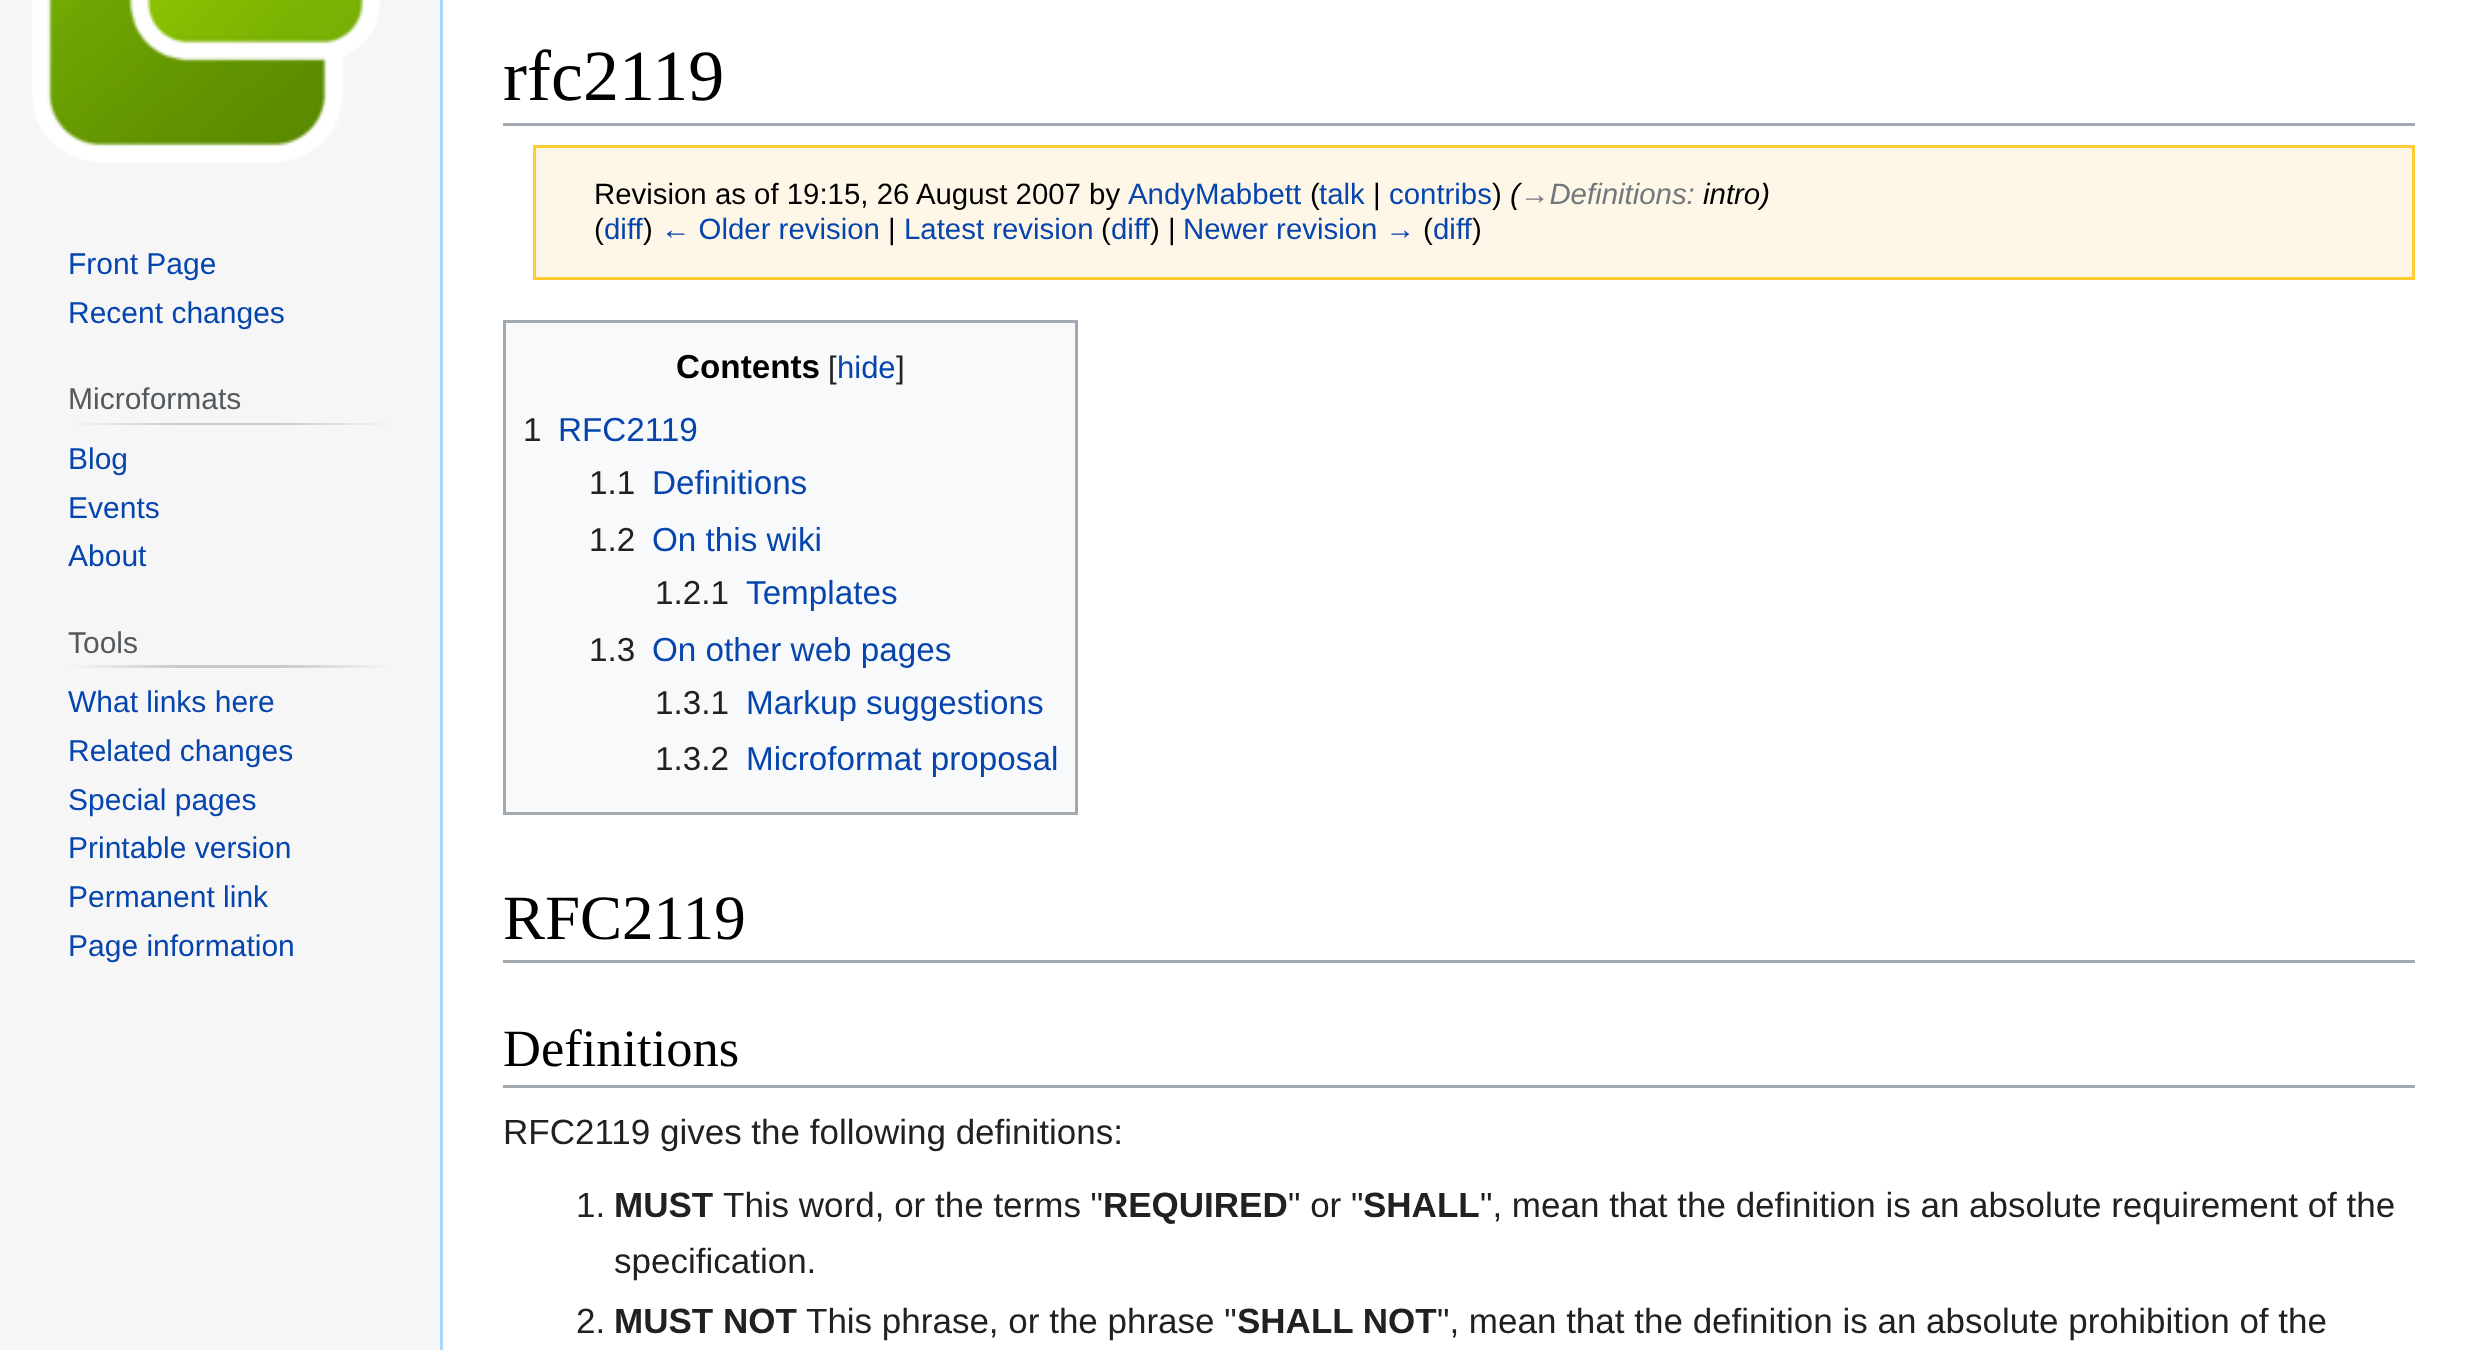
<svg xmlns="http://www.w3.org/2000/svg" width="2474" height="1350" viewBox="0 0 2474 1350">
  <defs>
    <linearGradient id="g1" gradientUnits="userSpaceOnUse" x1="68" y1="424" x2="395" y2="424"><stop offset="0" stop-color="#f6f6f6"/><stop offset="0.33" stop-color="#c8ccd1"/><stop offset="0.66" stop-color="#c8ccd1"/><stop offset="1" stop-color="#f6f6f6"/></linearGradient>
    <linearGradient id="g2" gradientUnits="userSpaceOnUse" x1="68" y1="666" x2="395" y2="666"><stop offset="0" stop-color="#f6f6f6"/><stop offset="0.33" stop-color="#c8ccd1"/><stop offset="0.66" stop-color="#c8ccd1"/><stop offset="1" stop-color="#f6f6f6"/></linearGradient>
  </defs>
  <rect width="100%" height="100%" fill="#f6f6f6"/>
  <image x="32" y="0" width="348" height="163" href="img1.png"/>
  <text x="68" y="274" font-family="Liberation Sans" font-size="30" fill="#0645ad">Front Page</text>
  <text x="68" y="323" font-family="Liberation Sans" font-size="30" fill="#0645ad">Recent changes</text>
  <rect x="68" y="423" width="327" height="2" fill="url(#g1)"/>
  <text x="68" y="409" font-family="Liberation Sans" font-size="30" fill="#54595d">Microformats</text>
  <text x="68" y="469" font-family="Liberation Sans" font-size="30" fill="#0645ad">Blog</text>
  <text x="68" y="518" font-family="Liberation Sans" font-size="30" fill="#0645ad">Events</text>
  <text x="68" y="566" font-family="Liberation Sans" font-size="30" fill="#0645ad">About</text>
  <rect x="68" y="665" width="327" height="3" fill="url(#g2)"/>
  <text x="68" y="653" font-family="Liberation Sans" font-size="30" fill="#54595d">Tools</text>
  <text x="68" y="712" font-family="Liberation Sans" font-size="30" fill="#0645ad">What links here</text>
  <text x="68" y="761" font-family="Liberation Sans" font-size="30" fill="#0645ad">Related changes</text>
  <text x="68" y="810" font-family="Liberation Sans" font-size="30" fill="#0645ad">Special pages</text>
  <text x="68" y="858" font-family="Liberation Sans" font-size="30" fill="#0645ad">Printable version</text>
  <text x="68" y="907" font-family="Liberation Sans" font-size="30" fill="#0645ad">Permanent link</text>
  <text x="68" y="956" font-family="Liberation Sans" font-size="30" fill="#0645ad">Page information</text>
  <rect x="443" y="0" width="2031" height="1350" fill="#ffffff"/>
  <rect x="440" y="0" width="3" height="1350" fill="#a7d7f9"/>
  <rect x="503" y="123" width="1912" height="3" fill="#a2a9b1"/>
  <text x="503" y="100" font-family="Liberation Serif" font-size="72" fill="#000000">rfc2119</text>
  <rect x="534.5" y="146.5" width="1879" height="132" fill="#fef6e7" stroke="#ffcc33" stroke-width="3"/>
  <text x="594" y="204" font-family="Liberation Sans" font-size="29.4" fill="#000000">Revision as of 19:15, 26 August 2007 by</text>
  <text x="1128" y="204" font-family="Liberation Sans" font-size="29.4" fill="#0645ad">AndyMabbett</text>
  <text x="1310" y="204" font-family="Liberation Sans" font-size="29.4" fill="#000000">(</text>
  <text x="1319" y="204" font-family="Liberation Sans" font-size="29.4" fill="#0645ad">talk</text>
  <text x="1373" y="204" font-family="Liberation Sans" font-size="29.4" fill="#000000">|</text>
  <text x="1389" y="204" font-family="Liberation Sans" font-size="29.4" fill="#0645ad">contribs</text>
  <text x="1492" y="204" font-family="Liberation Sans" font-size="29.4" fill="#000000">)</text>
  <text x="1510" y="204" font-family="Liberation Sans" font-size="29.4" font-style="italic" fill="#000000">(</text>
  <text x="1520" y="204" font-family="Liberation Sans" font-size="29.4" font-style="italic" fill="#72777d">→Definitions:</text>
  <text x="1703" y="204" font-family="Liberation Sans" font-size="29.4" font-style="italic" fill="#000000">intro)</text>
  <text x="594" y="239" font-family="Liberation Sans" font-size="29.4" fill="#000000">(</text>
  <text x="604" y="239" font-family="Liberation Sans" font-size="29.4" fill="#0645ad">diff</text>
  <text x="643" y="239" font-family="Liberation Sans" font-size="29.4" fill="#000000">)</text>
  <text x="661" y="239" font-family="Liberation Sans" font-size="29.4" fill="#0645ad">← Older revision</text>
  <text x="888" y="239" font-family="Liberation Sans" font-size="29.4" fill="#000000">|</text>
  <text x="904" y="239" font-family="Liberation Sans" font-size="29.4" fill="#0645ad">Latest revision</text>
  <text x="1101" y="239" font-family="Liberation Sans" font-size="29.4" fill="#000000">(</text>
  <text x="1111" y="239" font-family="Liberation Sans" font-size="29.4" fill="#0645ad">diff</text>
  <text x="1150" y="239" font-family="Liberation Sans" font-size="29.4" fill="#000000">) |</text>
  <text x="1183" y="239" font-family="Liberation Sans" font-size="29.4" fill="#0645ad">Newer revision →</text>
  <text x="1423" y="239" font-family="Liberation Sans" font-size="29.4" fill="#000000">(</text>
  <text x="1433" y="239" font-family="Liberation Sans" font-size="29.4" fill="#0645ad">diff</text>
  <text x="1472" y="239" font-family="Liberation Sans" font-size="29.4" fill="#000000">)</text>
  <rect x="504.5" y="321.5" width="572" height="492" fill="#f8f9fa" stroke="#a2a9b1" stroke-width="3"/>
  <text x="676" y="378" font-family="Liberation Sans" font-size="33.25" font-weight="bold" fill="#000000">Contents</text>
  <text x="828" y="378" font-family="Liberation Sans" font-size="31" fill="#202122">[</text>
  <text x="837" y="378" font-family="Liberation Sans" font-size="31" fill="#0645ad">hide</text>
  <text x="896" y="378" font-family="Liberation Sans" font-size="31" fill="#202122">]</text>
  <text x="523" y="441" font-family="Liberation Sans" font-size="33.25" fill="#202122">1</text>
  <text x="558" y="441" font-family="Liberation Sans" font-size="33.25" fill="#0645ad">RFC2119</text>
  <text x="589" y="494" font-family="Liberation Sans" font-size="33.25" fill="#202122">1.1</text>
  <text x="652" y="494" font-family="Liberation Sans" font-size="33.25" fill="#0645ad">Definitions</text>
  <text x="589" y="551" font-family="Liberation Sans" font-size="33.25" fill="#202122">1.2</text>
  <text x="652" y="551" font-family="Liberation Sans" font-size="33.25" fill="#0645ad">On this wiki</text>
  <text x="655" y="604" font-family="Liberation Sans" font-size="33.25" fill="#202122">1.2.1</text>
  <text x="746" y="604" font-family="Liberation Sans" font-size="33.25" fill="#0645ad">Templates</text>
  <text x="589" y="661" font-family="Liberation Sans" font-size="33.25" fill="#202122">1.3</text>
  <text x="652" y="661" font-family="Liberation Sans" font-size="33.25" fill="#0645ad">On other web pages</text>
  <text x="655" y="714" font-family="Liberation Sans" font-size="33.25" fill="#202122">1.3.1</text>
  <text x="746" y="714" font-family="Liberation Sans" font-size="33.25" fill="#0645ad">Markup suggestions</text>
  <text x="655" y="770" font-family="Liberation Sans" font-size="33.25" fill="#202122">1.3.2</text>
  <text x="746" y="770" font-family="Liberation Sans" font-size="33.25" fill="#0645ad">Microformat proposal</text>
  <rect x="503" y="960" width="1912" height="3" fill="#a2a9b1"/>
  <text x="503" y="939" font-family="Liberation Serif" font-size="63" fill="#000000">RFC2119</text>
  <rect x="503" y="1085" width="1912" height="3" fill="#a2a9b1"/>
  <text x="503" y="1066" font-family="Liberation Serif" font-size="52.5" fill="#000000">Definitions</text>
  <text x="503" y="1144" font-family="Liberation Sans" font-size="35" fill="#202122">RFC2119 gives the following definitions:</text>
  <text x="576" y="1217" font-family="Liberation Sans" font-size="35" fill="#202122">1.</text>
  <text x="614" y="1217" font-family="Liberation Sans" font-size="35" font-weight="bold" fill="#202122">MUST</text>
  <text x="723" y="1217" font-family="Liberation Sans" font-size="35" fill="#202122">This word, or the terms "</text>
  <text x="1103" y="1217" font-family="Liberation Sans" font-size="35" font-weight="bold" fill="#202122">REQUIRED</text>
  <text x="1288" y="1217" font-family="Liberation Sans" font-size="35" fill="#202122">" or "</text>
  <text x="1363" y="1217" font-family="Liberation Sans" font-size="35" font-weight="bold" fill="#202122">SHALL</text>
  <text x="1480" y="1217" font-family="Liberation Sans" font-size="35" fill="#202122">", mean that the definition is an absolute requirement of the</text>
  <text x="614" y="1273" font-family="Liberation Sans" font-size="35" fill="#202122">specification.</text>
  <text x="576" y="1333" font-family="Liberation Sans" font-size="35" fill="#202122">2.</text>
  <text x="614" y="1333" font-family="Liberation Sans" font-size="35" font-weight="bold" fill="#202122">MUST NOT</text>
  <text x="806" y="1333" font-family="Liberation Sans" font-size="35" fill="#202122">This phrase, or the phrase "</text>
  <text x="1237" y="1333" font-family="Liberation Sans" font-size="35" font-weight="bold" fill="#202122">SHALL NOT</text>
  <text x="1437" y="1333" font-family="Liberation Sans" font-size="35" fill="#202122">", mean that the definition is an absolute prohibition of the</text>
</svg>
